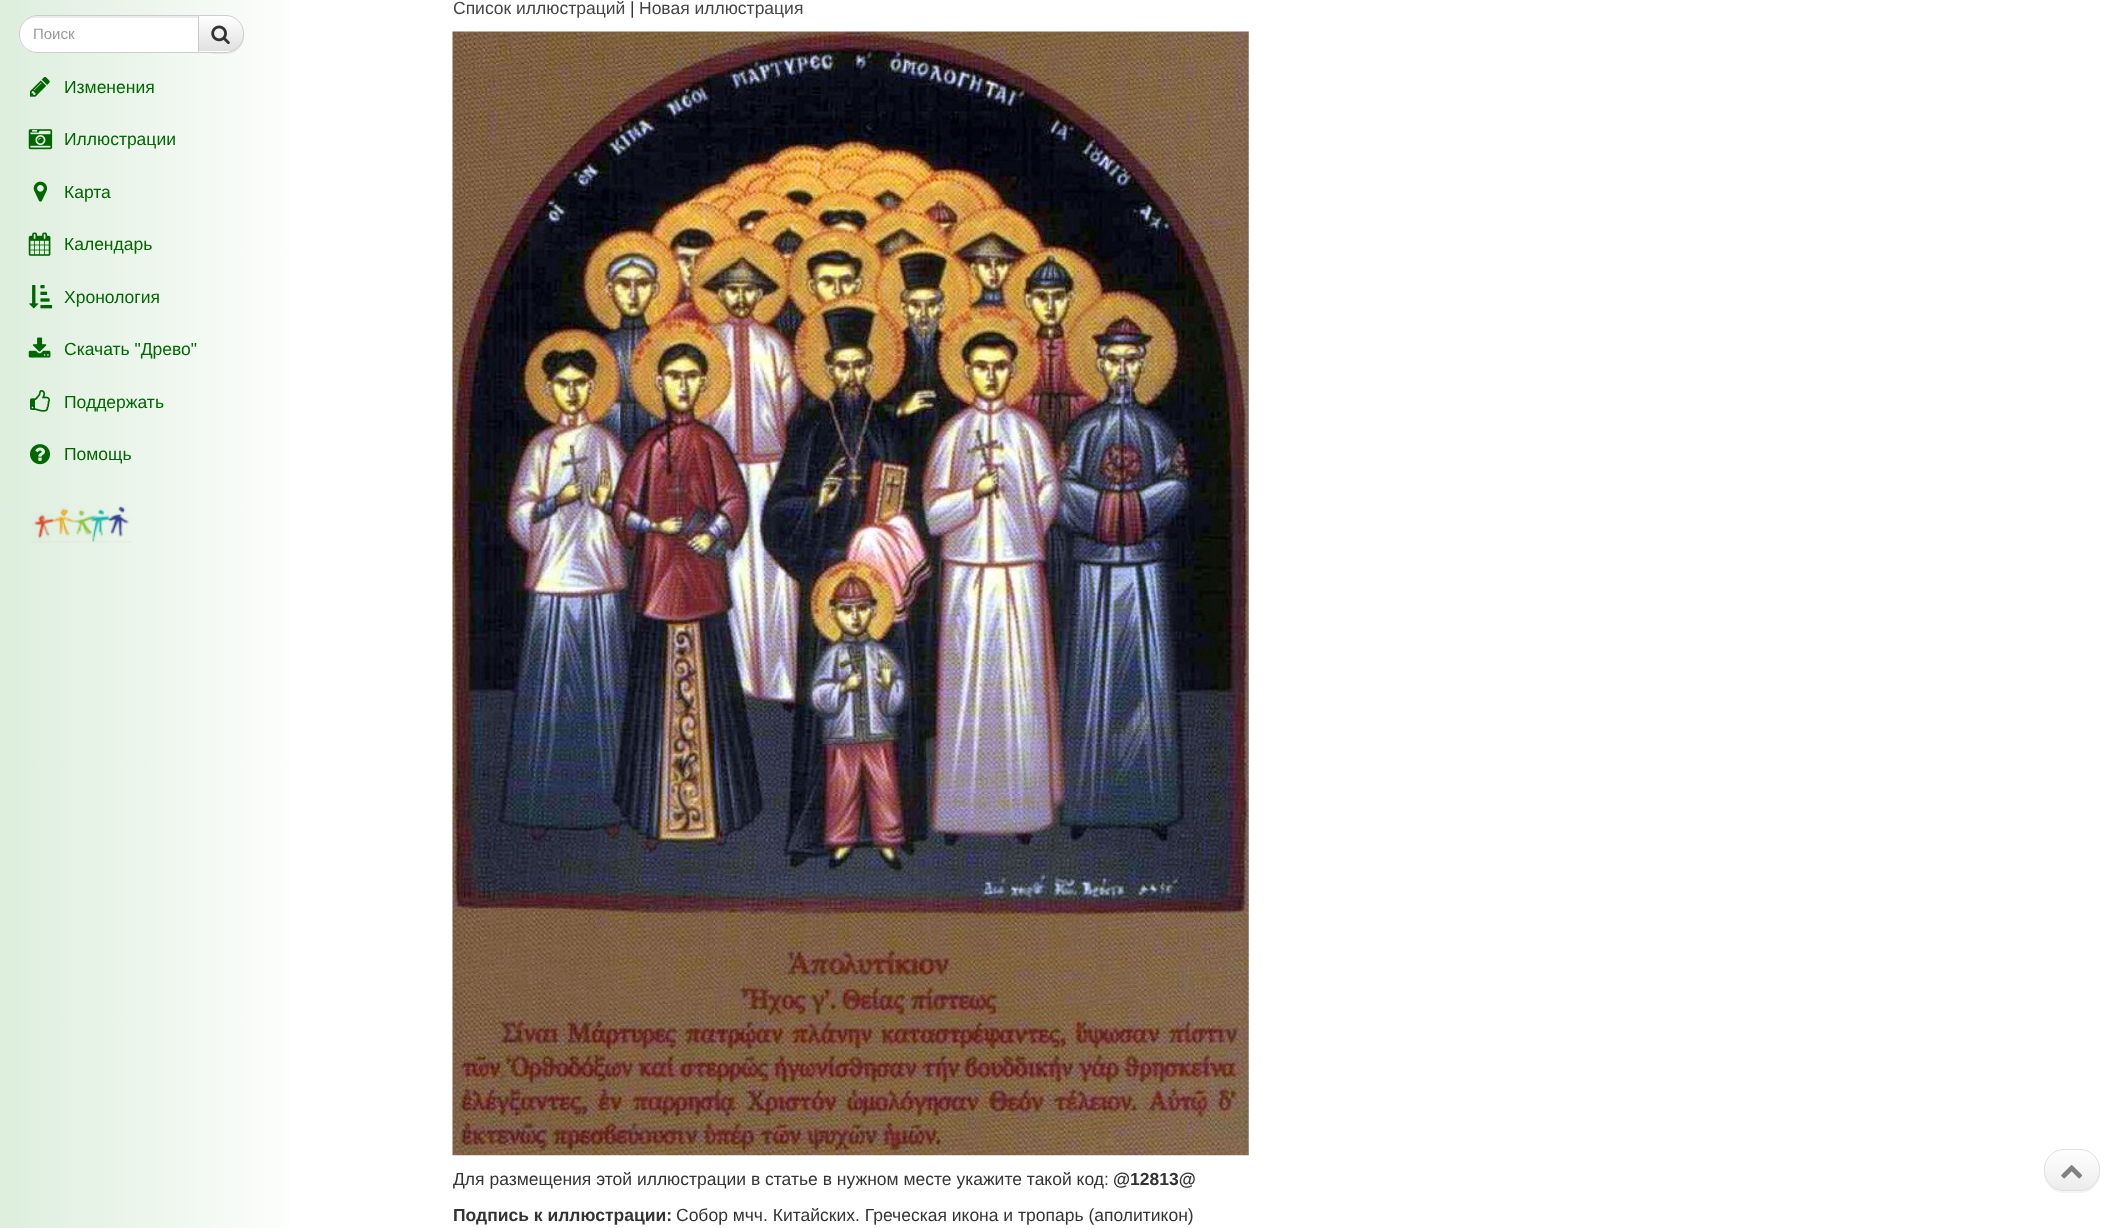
<svg xmlns="http://www.w3.org/2000/svg" width="2118" height="1228" viewBox="0 0 2118 1228">
  <defs>
    <linearGradient id="g1" gradientUnits="userSpaceOnUse" x1="0" y1="625" x2="313" y2="625"><stop offset="0" stop-color="#ddeedd"/><stop offset="1" stop-color="#ffffff"/></linearGradient>
    <filter id="blur1" x="-50%" y="-200%" width="200%" height="500%"><feGaussianBlur stdDeviation="0.5"/></filter>
    <clipPath id="clip1"><path d="M198 15H226C236 15 244 23 244 33V35C244 45 236 53 226 53H198Z"/></clipPath>
    <linearGradient id="g2" gradientUnits="userSpaceOnUse" x1="221" y1="16" x2="221" y2="51"><stop offset="0" stop-color="#ffffff"/><stop offset="1" stop-color="#e0e0e0"/></linearGradient>
    <clipPath id="clip2"><rect x="2044" y="1149" width="56" height="42" rx="20"/></clipPath>
    <linearGradient id="g3" gradientUnits="userSpaceOnUse" x1="2072" y1="1150" x2="2072" y2="1190"><stop offset="0" stop-color="#ffffff"/><stop offset="1" stop-color="#ececec"/></linearGradient>
  </defs>
  <rect width="100%" height="100%" fill="#ffffff"/>
  <rect x="0" y="0" width="290" height="1228" fill="url(#g1)"/>
  <rect x="198" y="16" width="46" height="38" rx="18" fill="#000000" fill-opacity="0.07" filter="url(#blur1)"/>
  <path d="M198 15H226C236 15 244 23 244 33V35C244 45 236 53 226 53H198Z" fill="#ffffff"/>
  <g clip-path="url(#clip1)">
    <rect x="199" y="16" width="45" height="35" fill="url(#g2)"/>
  </g>
  <path d="M198.5 15.5H226C235.5 15.5 243.5 23.5 243.5 33V35C243.5 44.5 235.5 52.5 226 52.5H198.5Z" fill="none" stroke="#cccccc"/>
  <path d="M37 15H199V53H37C27 53 19 45 19 35V33C19 23 27 15 37 15Z" fill="#ffffff"/>
  <path d="M36 18H198V16H36C27 16 20 23 20 32C21 25 26 18 36 18Z" fill="#ececec"/>
  <path d="M37 15.5H198.5V52.5H37C27.5 52.5 19.5 44.5 19.5 35V33C19.5 23.5 27.5 15.5 37 15.5Z" fill="none" stroke="#cccccc"/>
  <text x="33" y="39" font-family="Liberation Sans" font-size="15" fill="#999999">Поиск</text>
  <image x="211" y="25" width="19" height="20" href="img1.png"/>
  <image x="30" y="77" width="20" height="20" href="img2.png"/>
  <text x="64" y="93" font-family="Liberation Sans" font-size="17.5" fill="#006600">Изменения</text>
  <image x="28" y="129" width="25" height="21" href="img3.png"/>
  <text x="64" y="145" font-family="Liberation Sans" font-size="17.5" fill="#006600">Иллюстрации</text>
  <image x="33" y="181" width="15" height="21" href="img4.png"/>
  <text x="64" y="198" font-family="Liberation Sans" font-size="17.5" fill="#006600">Карта</text>
  <image x="28" y="232" width="23" height="24" href="img5.png"/>
  <text x="64" y="250" font-family="Liberation Sans" font-size="17.5" fill="#006600">Календарь</text>
  <image x="29" y="285" width="24" height="24" href="img6.png"/>
  <text x="64" y="303" font-family="Liberation Sans" font-size="17.5" fill="#006600">Хронология</text>
  <image x="28" y="337" width="23" height="21" href="img7.png"/>
  <text x="64" y="355" font-family="Liberation Sans" font-size="17.5" fill="#006600">Скачать "Древо"</text>
  <image x="30" y="390" width="20" height="22" href="img8.png"/>
  <text x="64" y="408" font-family="Liberation Sans" font-size="17.5" fill="#006600">Поддержать</text>
  <image x="30" y="444" width="20" height="21" href="img9.png"/>
  <text x="64" y="460" font-family="Liberation Sans" font-size="17.5" fill="#006600">Помощь</text>
  <image x="31" y="504" width="101" height="39" href="img10.png"/>
  <text x="453" y="14" font-family="Liberation Sans" font-size="17.5" fill="#444444">Список иллюстраций</text>
  <text x="630" y="14" font-family="Liberation Sans" font-size="17.5" fill="#333333">|</text>
  <text x="639" y="14" font-family="Liberation Sans" font-size="17.5" fill="#444444">Новая иллюстрация</text>
  <image x="452" y="31" width="797" height="1125" href="img11.png"/>
  <text x="453" y="1185" font-family="Liberation Sans" font-size="17.5" fill="#333333">Для размещения этой иллюстрации в статье в нужном месте укажите такой код:</text>
  <text x="1113" y="1185" font-family="Liberation Sans" font-size="17.5" font-weight="bold" fill="#333333">@12813@</text>
  <text x="453" y="1221" font-family="Liberation Sans" font-size="17.5" font-weight="bold" fill="#333333">Подпись к иллюстрации:</text>
  <text x="676" y="1221" font-family="Liberation Sans" font-size="17.5" fill="#333333">Собор мчч. Китайских. Греческая икона и тропарь (аполитикон)</text>
  <rect x="2044" y="1150" width="56" height="43" rx="20" fill="#666666" fill-opacity="0.07" filter="url(#blur1)"/>
  <g clip-path="url(#clip2)">
    <rect x="2044" y="1150" width="56" height="40" fill="url(#g3)"/>
  </g>
  <rect x="2044.5" y="1149.5" width="55" height="41" rx="19.5" fill="none" stroke="#e0e0e0"/>
  <image x="2061" y="1165" width="22" height="14" href="img12.png"/>
</svg>
